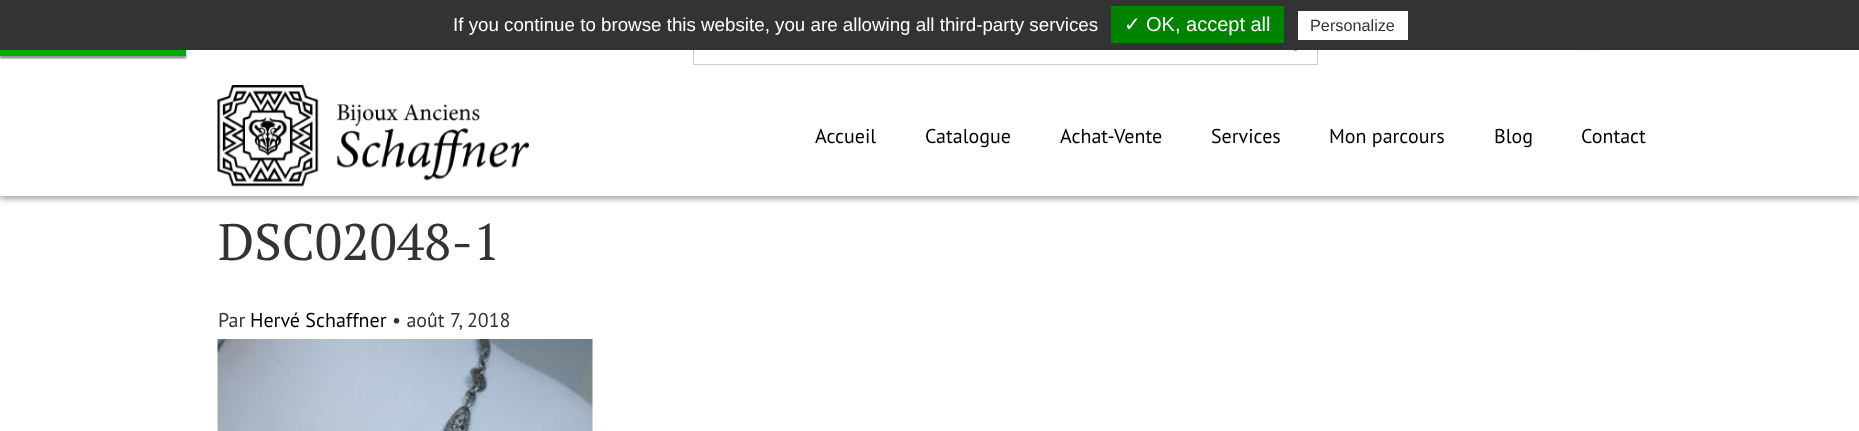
<svg xmlns="http://www.w3.org/2000/svg" width="1859" height="431" viewBox="0 0 1859 431">
  <defs>
    <filter id="blur1" x="-50%" y="-200%" width="200%" height="500%"><feGaussianBlur stdDeviation="4"/></filter>
    <filter id="blur2" x="-50%" y="-200%" width="200%" height="500%"><feGaussianBlur stdDeviation="2.5"/></filter>
    <filter id="blur3" x="-50%" y="-200%" width="200%" height="500%"><feGaussianBlur stdDeviation="1"/></filter>
  </defs>
  <rect width="100%" height="100%" fill="#ffffff"/>
  <rect x="0" y="3" width="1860" height="196" fill="#000000" fill-opacity="0.12" filter="url(#blur1)"/>
  <rect x="0" y="3" width="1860" height="196" fill="#000000" fill-opacity="0.24" filter="url(#blur2)"/>
  <rect x="0" y="50" width="1859" height="146" fill="#ffffff"/>
  <rect x="0" y="51" width="186" height="7" fill="#555555" filter="url(#blur3)"/>
  <rect x="0" y="50" width="186" height="6" fill="#ffffff" filter="url(#blur3)"/>
  <rect x="693.5" y="10.5" width="624" height="54" fill="none" stroke="#cccccc"/>
  <rect x="0" y="0" width="1859" height="50" fill="#333333"/>
  <text x="453" y="31" font-family="Liberation Sans" font-size="18.75" fill="#ffffff">If you continue to browse this website, you are allowing all third-party services</text>
  <rect x="1111" y="6" width="173" height="37" fill="#008300"/>
  <text x="1124" y="31" font-family="DejaVu Sans" font-size="20" fill="#ffffff">✓</text>
  <text x="1146" y="31" font-family="Liberation Sans" font-size="20" fill="#ffffff">OK, accept all</text>
  <rect x="1298" y="11" width="110" height="29" fill="#ffffff"/>
  <text x="1310" y="31" font-family="Liberation Sans" font-size="16.25" fill="#333333">Personalize</text>
  <rect x="0" y="50" width="186" height="6" fill="#00aa00"/>
  <image x="1293" y="50" width="4" height="2" href="img1.png"/>
  <image x="1578" y="50" width="20" height="1" href="img2.png"/>
  <image x="217" y="85" width="313" height="102" href="img3.png"/>
  <text x="815" y="143" font-family="PT Sans" font-size="20" fill="#000000">Accueil</text>
  <text x="925" y="143" font-family="PT Sans" font-size="20" fill="#000000">Catalogue</text>
  <text x="1060" y="143" font-family="PT Sans" font-size="20" fill="#000000">Achat-Vente</text>
  <text x="1211" y="143" font-family="PT Sans" font-size="20" fill="#000000">Services</text>
  <text x="1329" y="143" font-family="PT Sans" font-size="20" fill="#000000">Mon parcours</text>
  <text x="1494" y="143" font-family="PT Sans" font-size="20" fill="#000000">Blog</text>
  <text x="1581" y="143" font-family="PT Sans" font-size="20" fill="#000000">Contact</text>
  <text x="218" y="260" font-family="PT Serif" font-size="51.25" fill="#333333">DSC02048-1</text>
  <text x="218" y="327" font-family="PT Sans" font-size="20" fill="#333333">Par</text>
  <text x="250" y="327" font-family="PT Sans" font-size="20" fill="#000000">Hervé Schaffner</text>
  <text x="392" y="327" font-family="PT Sans" font-size="20" fill="#333333">• août 7, 2018</text>
  <image x="217" y="339" width="376" height="92" href="img4.png"/>
</svg>
